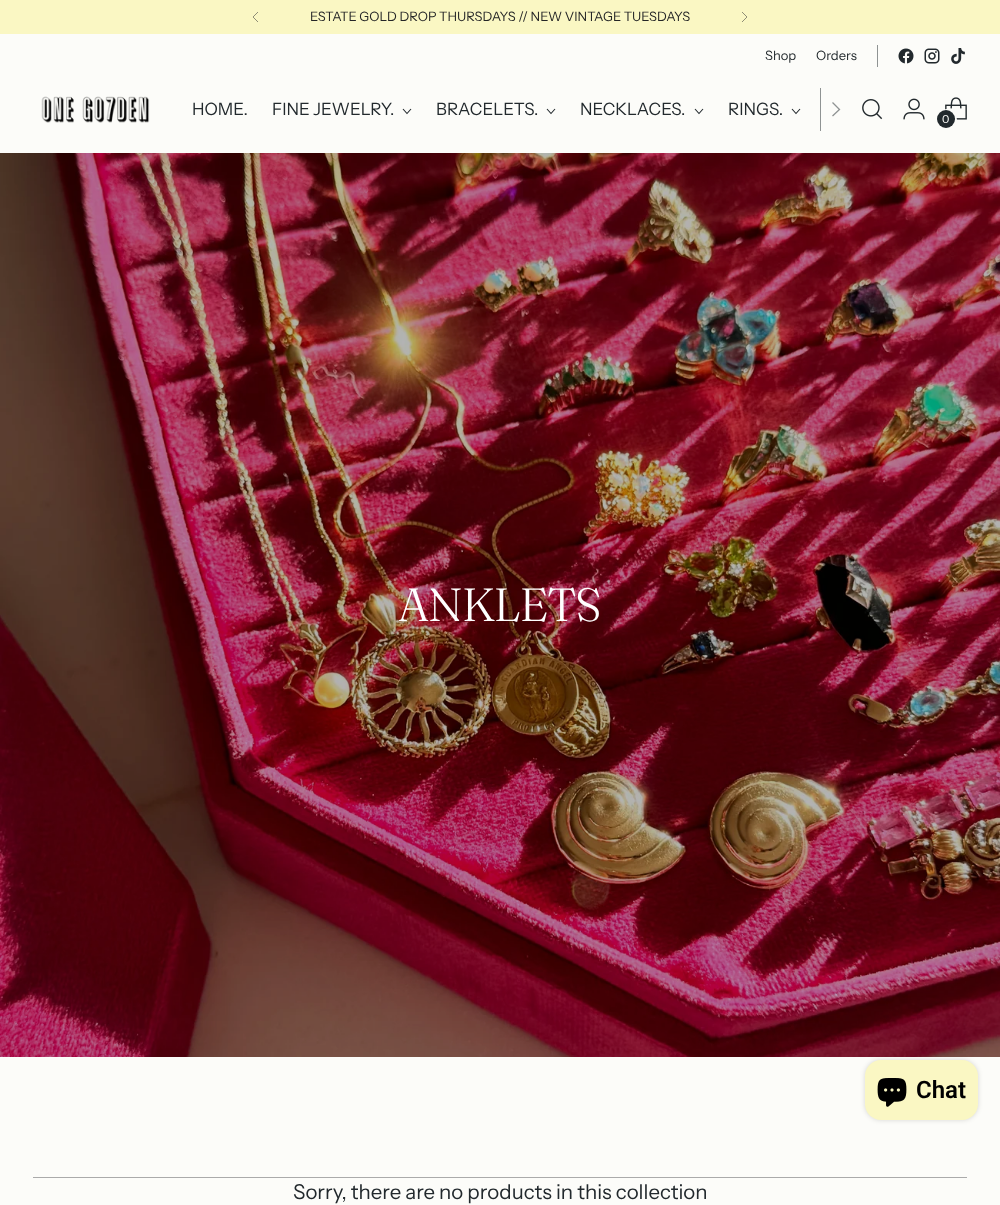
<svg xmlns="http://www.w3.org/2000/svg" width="1000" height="1205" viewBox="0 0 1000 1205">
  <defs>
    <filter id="blur1" x="-50%" y="-200%" width="200%" height="500%"><feGaussianBlur stdDeviation="2.5"/></filter>
  </defs>
  <rect width="100%" height="100%" fill="#fcfcf9"/>
  <rect x="0" y="0" width="1000" height="34" fill="#faf7c3"/>
  <path d="M258 12L253 17L258 22" fill="none" stroke="#8f8e75"/>
  <path d="M742 22L747 17L742 12" fill="none" stroke="#8f8e75"/>
  <text x="310" y="21" font-family="Instrument Sans" font-size="13" fill="#242526">ESTATE GOLD DROP THURSDAYS // NEW VINTAGE TUESDAYS</text>
  <text x="765" y="60" font-family="Instrument Sans" font-size="13" fill="#22292d">Shop</text>
  <text x="816" y="60" font-family="Instrument Sans" font-size="13" fill="#22292d">Orders</text>
  <rect x="877" y="45" width="1" height="22" fill="#8f9393"/>
  <image x="898" y="48" width="16" height="16" href="img1.png"/>
  <image x="924" y="48" width="16" height="16" href="img2.png"/>
  <image x="951" y="48" width="14" height="16" href="img3.png"/>
  <image x="41" y="96" width="109" height="27" href="img4.png"/>
  <text x="192" y="115" font-family="Instrument Sans" font-size="17" fill="#22292d">HOME.</text>
  <text x="272" y="115" font-family="Instrument Sans" font-size="17" fill="#22292d">FINE JEWELRY.</text>
  <path d="M403 109L407 113.5L411 109" fill="none" stroke="#22292d" stroke-width="1.1"/>
  <text x="436" y="115" font-family="Instrument Sans" font-size="17" fill="#22292d">BRACELETS.</text>
  <path d="M547 109L551 113.5L555 109" fill="none" stroke="#22292d" stroke-width="1.1"/>
  <text x="580" y="115" font-family="Instrument Sans" font-size="17" fill="#22292d">NECKLACES.</text>
  <path d="M695 109L699 113.5L703 109" fill="none" stroke="#22292d" stroke-width="1.1"/>
  <text x="728" y="115" font-family="Instrument Sans" font-size="17" fill="#22292d">RINGS.</text>
  <path d="M792 109L796 113.5L800 109" fill="none" stroke="#22292d" stroke-width="1.1"/>
  <rect x="820" y="88" width="1" height="43" fill="#8f9393"/>
  <path d="M832.5 116L839.5 109.5L832.5 102.5" fill="none" stroke="#8f9393" stroke-width="1.3"/>
  <image x="862" y="99" width="21" height="21" href="img5.png"/>
  <image x="903" y="98" width="22" height="22" href="img6.png"/>
  <image x="945" y="97" width="22" height="23" href="img7.png"/>
  <circle cx="946.5" cy="119.5" r="9.5" fill="none" stroke="#fcfcf9" stroke-width="2"/>
  <circle cx="946" cy="119" r="9" fill="#22292d"/>
  <text x="942" y="123" font-family="Instrument Sans" font-size="11" fill="#fcfcf9">0</text>
  <image x="0" y="153" width="1000" height="904" href="img8.png"/>
  <text x="398" y="621" font-family="Fraunces" font-size="46.5" font-weight="300" letter-spacing="-1.25" fill="#ffffff">ANKLETS</text>
  <rect x="33" y="1177" width="934" height="1" fill="#aaaaaa"/>
  <text x="293" y="1199" font-family="Instrument Sans" font-size="20.45" fill="#22292d">Sorry, there are no products in this collection</text>
  <rect x="865" y="1060" width="113" height="60" rx="16" fill="#000000" fill-opacity="0.15" filter="url(#blur1)"/>
  <rect x="865" y="1060" width="113" height="60" rx="16" fill="#faf7c3"/>
  <image x="877" y="1078" width="30" height="29" href="img9.png"/>
  <text x="916" y="1098" font-family="Roboto" font-size="24" font-weight="600" fill="#000000">Chat</text>
</svg>
